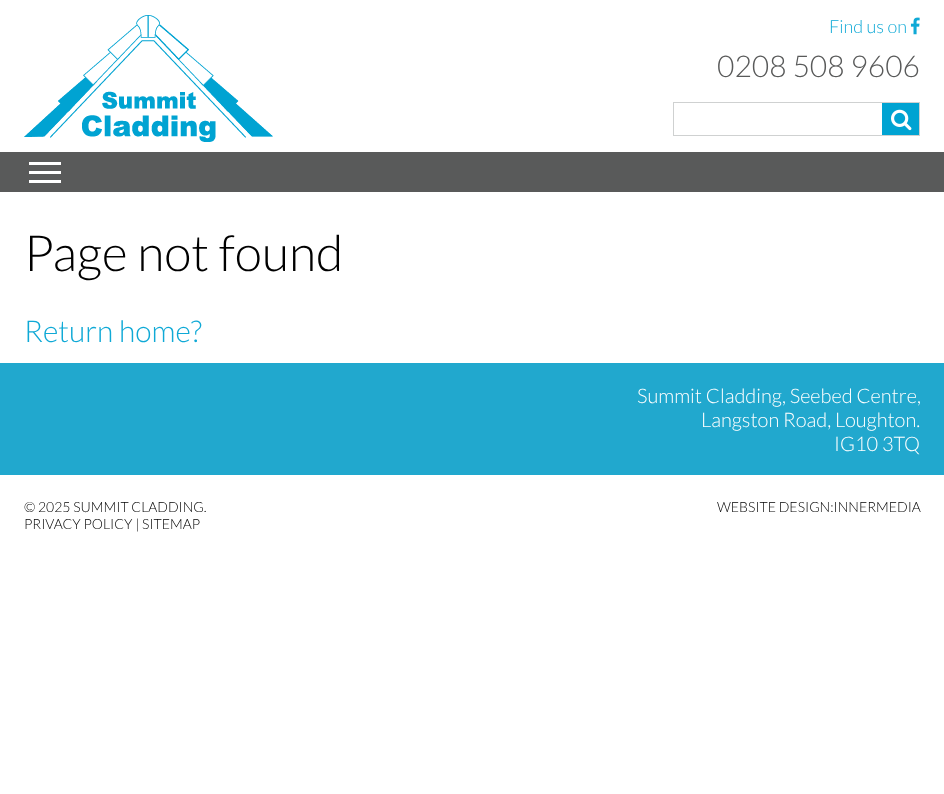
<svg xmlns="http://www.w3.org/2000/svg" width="944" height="794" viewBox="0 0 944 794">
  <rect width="100%" height="100%" fill="#ffffff"/>
  <image x="24" y="15" width="249" height="127" href="img1.png"/>
  <text x="829" y="33" font-family="Lato" font-size="18" font-weight="300" fill="#0fa9d6">Find us on</text>
  <image x="910" y="17" width="10" height="18" href="img2.png"/>
  <text x="717" y="77" font-family="Lato" font-size="30" font-weight="300" fill="#595a5a">0208 508 9606</text>
  <rect x="673.5" y="102.5" width="246" height="33" fill="none" stroke="#cfd1d1"/>
  <rect x="882" y="103" width="37" height="32" fill="#00a3d2"/>
  <image x="891" y="109" width="21" height="22" href="img3.png"/>
  <rect x="0" y="152" width="944" height="40" fill="#595a5a"/>
  <rect x="29" y="171" width="32" height="3" fill="#ffffff"/>
  <rect x="29" y="162" width="32" height="3" fill="#ffffff"/>
  <rect x="29" y="180" width="32" height="3" fill="#ffffff"/>
  <text x="24" y="271" font-family="Lato" font-size="50" font-weight="300" fill="#000000">Page not found</text>
  <text x="24" y="342" font-family="Lato" font-size="30" font-weight="300" fill="#0fa9d6">Return home?</text>
  <rect x="0" y="363" width="944" height="112" fill="#21a8ce"/>
  <text x="637" y="403" font-family="Lato" font-size="20" font-weight="300" fill="#ffffff">Summit Cladding, Seebed Centre,</text>
  <text x="701" y="427" font-family="Lato" font-size="20" font-weight="300" fill="#ffffff">Langston Road, Loughton.</text>
  <text x="834" y="451" font-family="Lato" font-size="20" font-weight="300" fill="#ffffff">IG10 3TQ</text>
  <text x="24" y="512" font-family="Lato" font-size="14" font-weight="300" fill="#000000">© 2025 SUMMIT CLADDING.</text>
  <text x="24" y="529" font-family="Lato" font-size="14" font-weight="300" fill="#000000">PRIVACY POLICY | SITEMAP</text>
  <text x="717" y="512" font-family="Lato" font-size="14" font-weight="300" fill="#000000">WEBSITE DESIGN:INNERMEDIA</text>
</svg>
